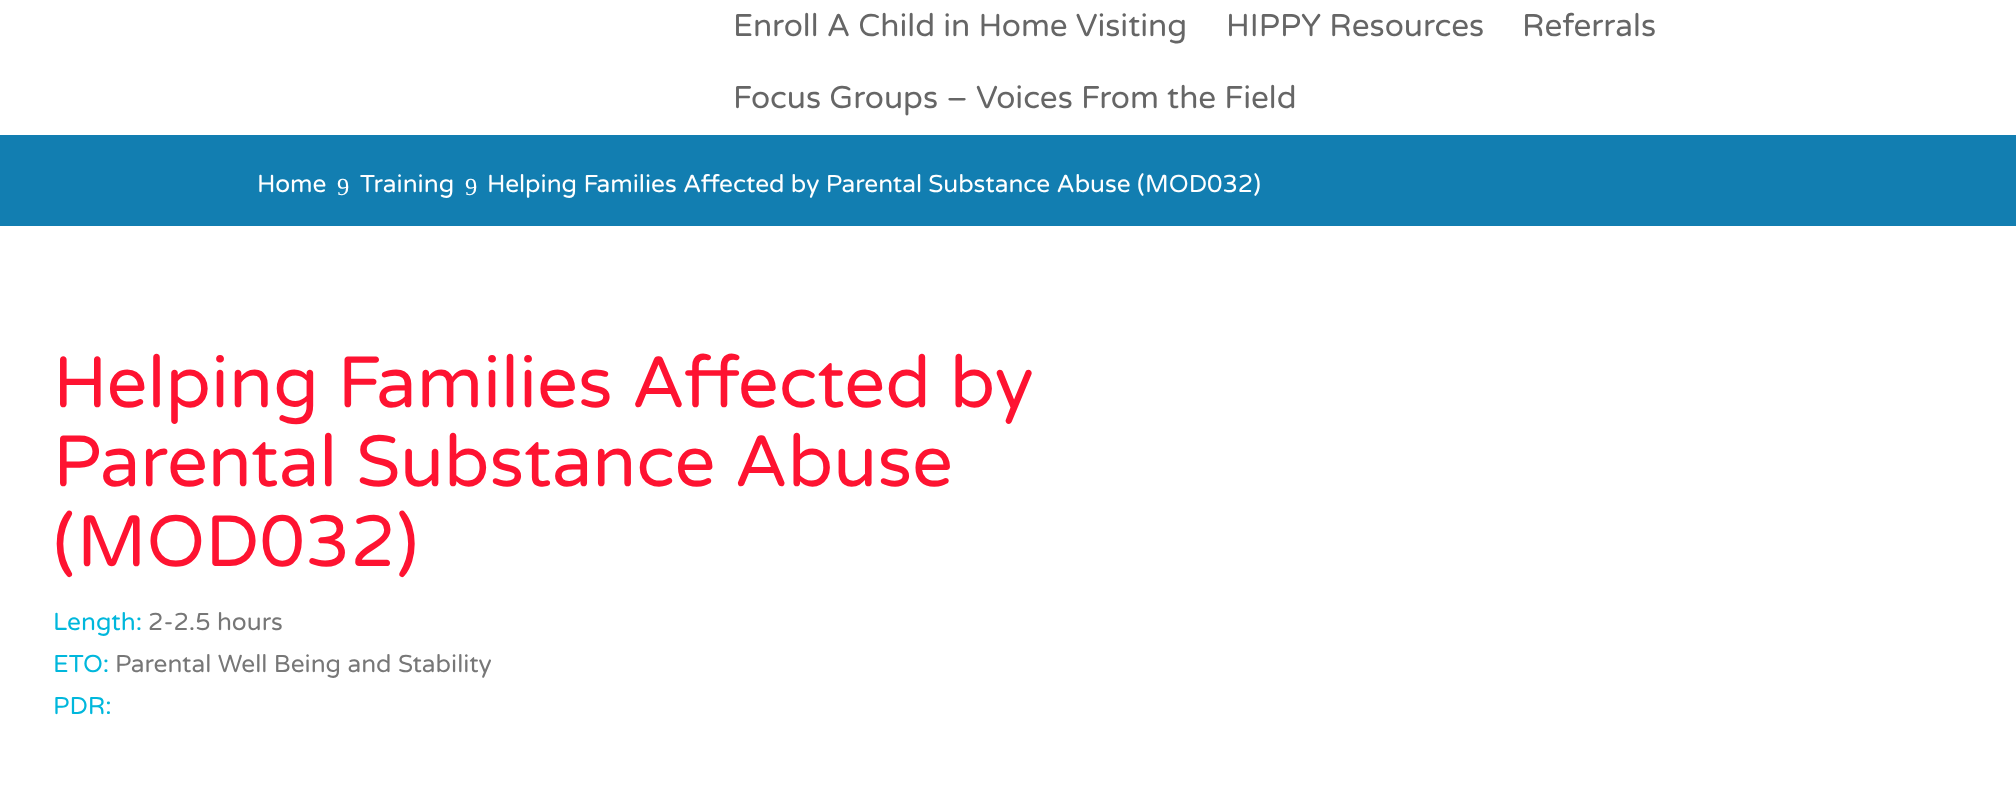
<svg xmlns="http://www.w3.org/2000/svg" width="2016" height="792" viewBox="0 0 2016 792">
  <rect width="100%" height="100%" fill="#ffffff"/>
  <text x="733" y="36" font-family="Varela Round" font-size="31.5" fill="#666666">Enroll A Child in Home Visiting</text>
  <text x="1226" y="36" font-family="Varela Round" font-size="31.5" fill="#666666">HIPPY Resources</text>
  <text x="1522" y="36" font-family="Varela Round" font-size="31.5" fill="#666666">Referrals</text>
  <text x="733" y="108" font-family="Varela Round" font-size="31.5" fill="#666666">Focus Groups – Voices From the Field</text>
  <rect x="0" y="135" width="2016" height="91" fill="#127eb1"/>
  <text x="257" y="192" font-family="Varela Round" font-size="24.5" fill="#ffffff">Home</text>
  <text x="337" y="195" font-family="Liberation Serif" font-size="24.5" fill="#ffffff">9</text>
  <text x="360" y="192" font-family="Varela Round" font-size="24.5" fill="#ffffff">Training</text>
  <text x="465" y="195" font-family="Liberation Serif" font-size="24.5" fill="#ffffff">9</text>
  <text x="487" y="192" font-family="Varela Round" font-size="24.5" fill="#ffffff">Helping Families Affected by Parental Substance Abuse (MOD032)</text>
  <text x="53" y="407" font-family="Varela Round" font-size="72.3" fill="#fe1331">Helping Families Affected by</text>
  <text x="53" y="486" font-family="Varela Round" font-size="72.3" fill="#fe1331">Parental Substance Abuse</text>
  <text x="53" y="566" font-family="Varela Round" font-size="72.3" fill="#fe1331">(MOD032)</text>
  <text x="53" y="630" font-family="Varela Round" font-size="24.5" fill="#00b7dc">Length:</text>
  <text x="148" y="630" font-family="Varela Round" font-size="24.5" fill="#777777">2-2.5 hours</text>
  <text x="53" y="672" font-family="Varela Round" font-size="24.5" fill="#00b7dc">ETO:</text>
  <text x="115" y="672" font-family="Varela Round" font-size="24.5" fill="#777777">Parental Well Being and Stability</text>
  <text x="53" y="714" font-family="Varela Round" font-size="24.5" fill="#00b7dc">PDR:</text>
</svg>
